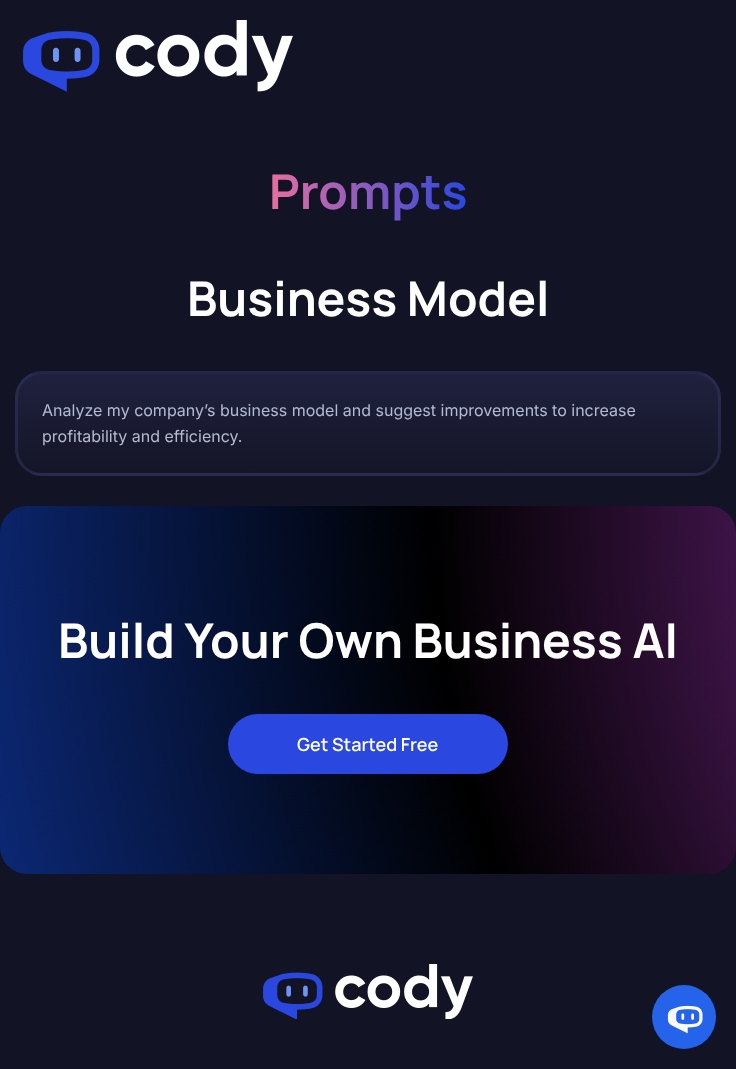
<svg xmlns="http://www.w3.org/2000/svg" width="736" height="1069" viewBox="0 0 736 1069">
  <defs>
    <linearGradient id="g1" gradientUnits="userSpaceOnUse" x1="269" y1="190" x2="467" y2="190"><stop offset="0" stop-color="#e86e9f"/><stop offset="1" stop-color="#2a48df"/></linearGradient>
    <clipPath id="clip1"><rect x="15" y="371" width="706" height="105" rx="27"/></clipPath>
    <linearGradient id="g2" gradientUnits="userSpaceOnUse" x1="368" y1="374" x2="368" y2="275"><stop offset="0" stop-color="#141527"/><stop offset="1" stop-color="#20213e"/></linearGradient>
    <linearGradient id="g3" gradientUnits="userSpaceOnUse" x1="368" y1="473" x2="368" y2="374"><stop offset="0" stop-color="#141527"/><stop offset="1" stop-color="#20213e"/></linearGradient>
    <linearGradient id="g4" gradientUnits="userSpaceOnUse" x1="368" y1="572" x2="368" y2="473"><stop offset="0" stop-color="#141527"/><stop offset="1" stop-color="#20213e"/></linearGradient>
    <radialGradient id="g5" gradientUnits="userSpaceOnUse" cx="1472" cy="506" r="2082"><stop offset="0" stop-color="#ce43ee"/><stop offset="0.5" stop-color="#000000"/><stop offset="1" stop-color="#1a57fe"/></radialGradient>
  </defs>
  <rect width="100%" height="100%" fill="#121324"/>
  <image x="23" y="20" width="270" height="72" href="img1.png"/>
  <text x="269" y="209" font-family="Manrope" font-size="48" font-weight="bold" fill="url(#g1)">Prompts</text>
  <text x="187" y="316" font-family="Manrope" font-size="48" font-weight="bold" fill="#ffffff">Business Model</text>
  <g clip-path="url(#clip1)">
    <rect x="29" y="371" width="678" height="3" fill="url(#g2)"/>
    <rect x="15" y="374" width="706" height="99" fill="url(#g3)"/>
    <rect x="29" y="473" width="678" height="3" fill="url(#g4)"/>
  </g>
  <rect x="16.5" y="372.5" width="703" height="102" rx="25.5" fill="none" stroke="#2f325a" stroke-opacity="0.6" stroke-width="3"/>
  <text x="42" y="416" font-family="Inter" font-size="16" fill="#b4bcd0">Analyze my company’s business model and suggest improvements to increase</text>
  <text x="42" y="442" font-family="Inter" font-size="16" fill="#b4bcd0">profitability and efficiency.</text>
  <rect x="0" y="506" width="736" height="368" rx="27" fill="url(#g5)"/>
  <text x="58" y="658" font-family="Manrope" font-size="48" font-weight="bold" fill="#ffffff">Build Your Own Business AI</text>
  <rect x="228" y="714" width="280" height="60" rx="30" fill="#2a48df"/>
  <text x="297" y="751" font-family="Manrope" font-size="18" font-weight="600" fill="#ffffff">Get Started Free</text>
  <image x="263" y="964" width="210" height="55" href="img2.png"/>
  <circle cx="684" cy="1017" r="32" fill="#2563eb"/>
  <image x="667" y="1005" width="36" height="29" href="img3.png"/>
</svg>
